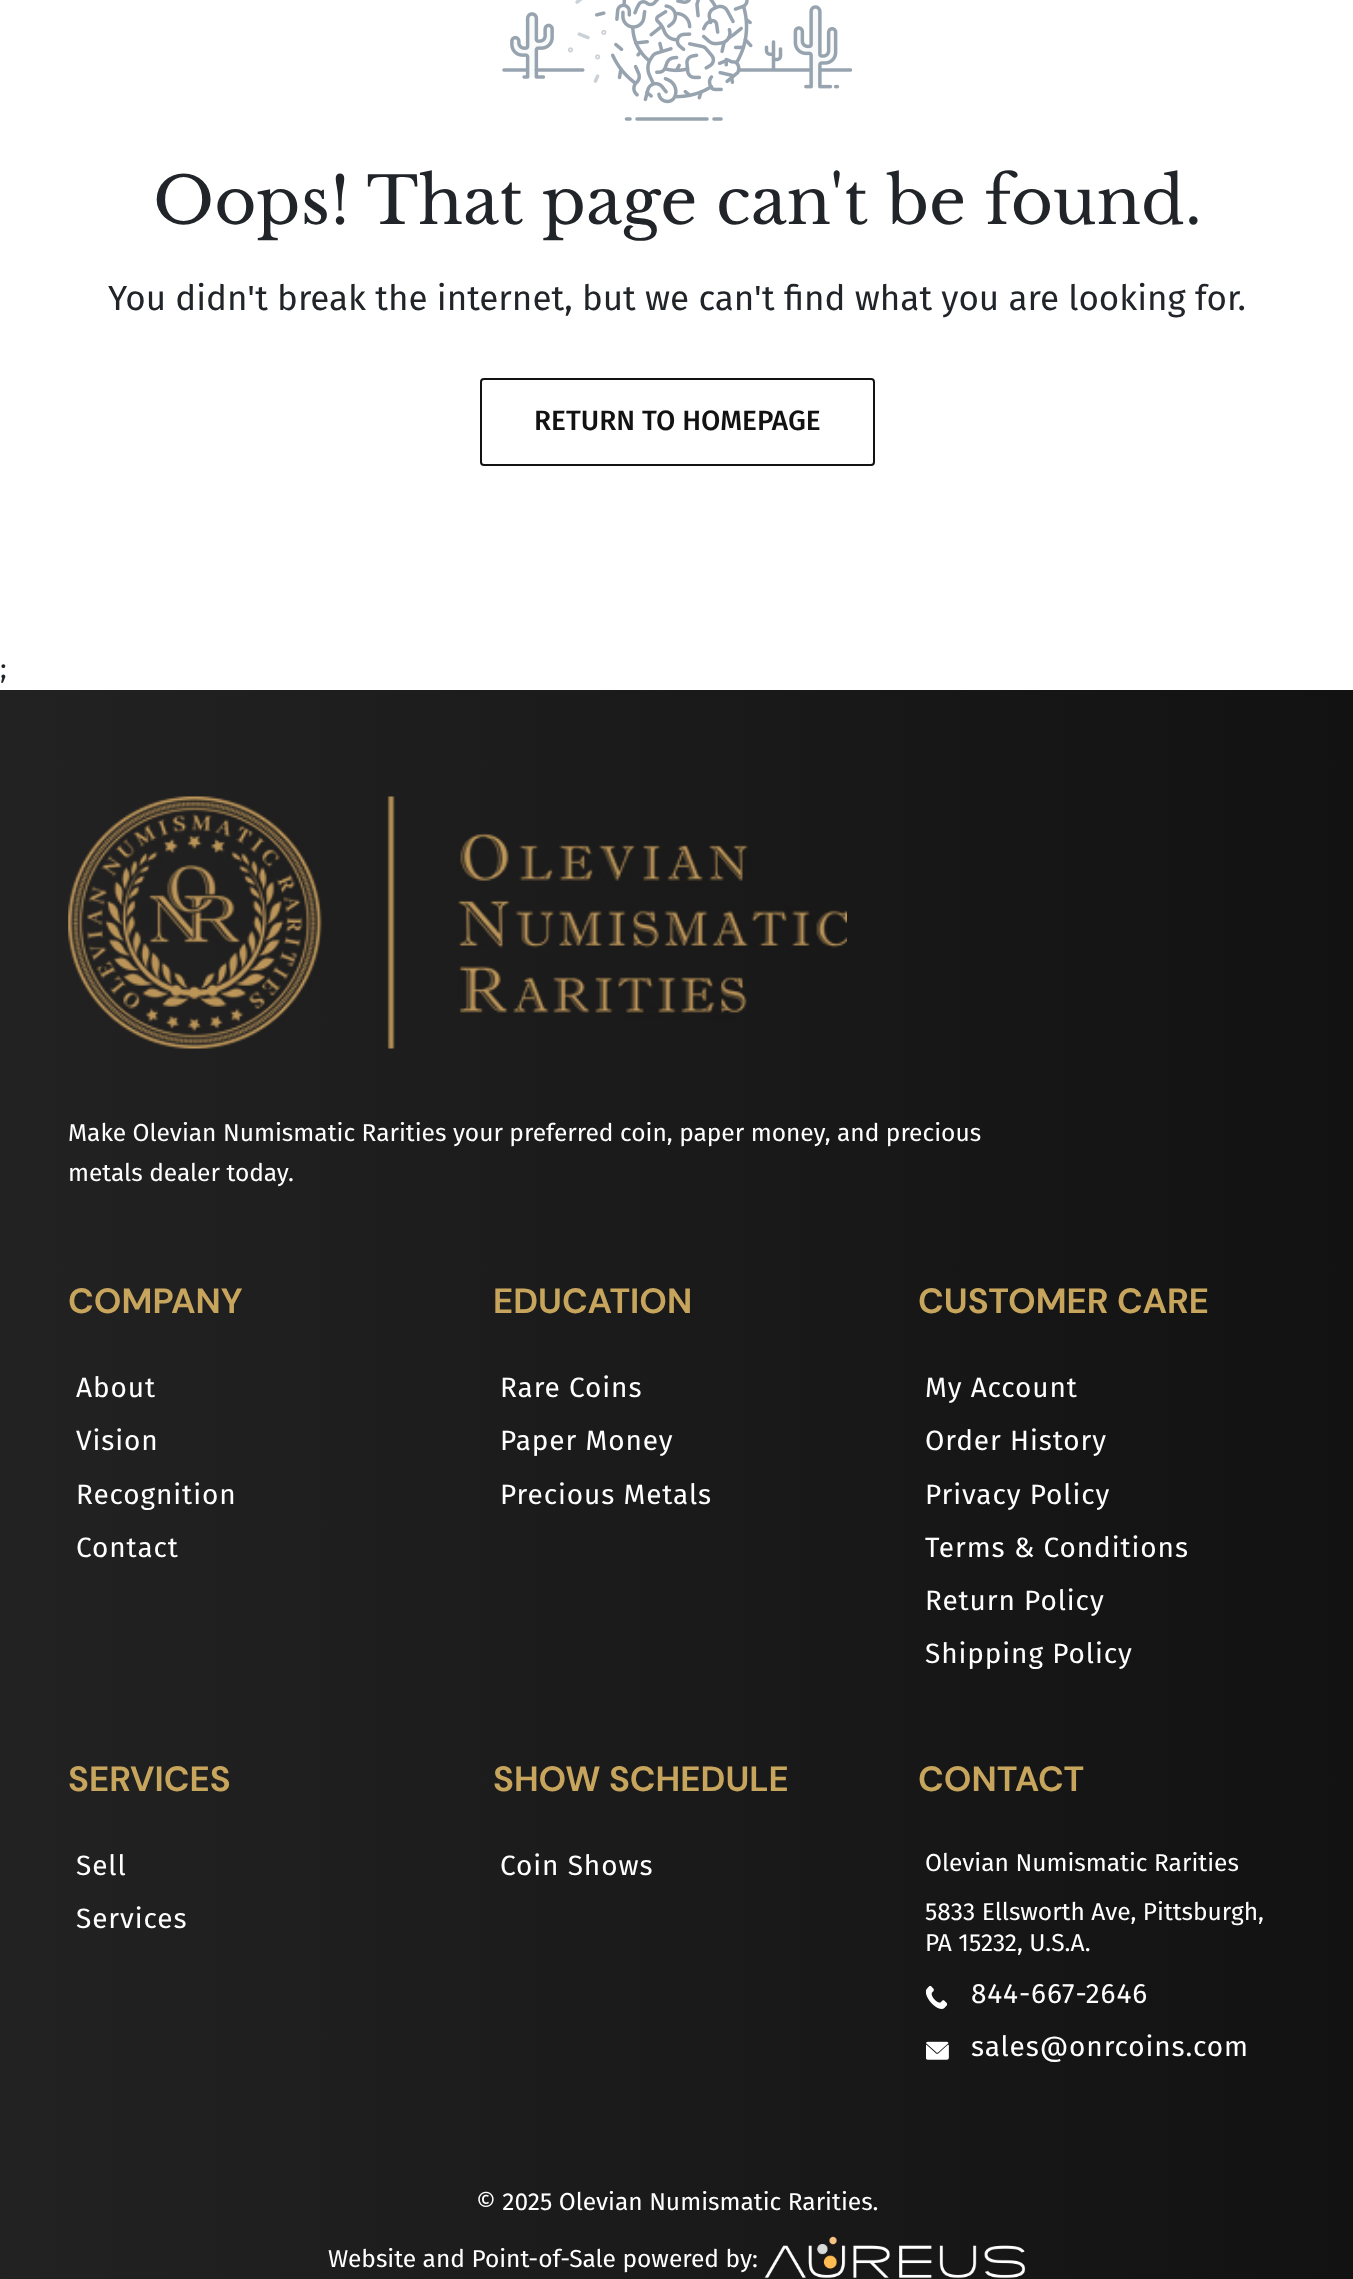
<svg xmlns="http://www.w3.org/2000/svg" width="1353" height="2279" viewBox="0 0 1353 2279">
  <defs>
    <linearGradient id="g1" gradientUnits="userSpaceOnUse" x1="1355" y1="1545" x2="0" y2="1545"><stop offset="0" stop-color="#121212"/><stop offset="1" stop-color="#232222"/></linearGradient>
  </defs>
  <rect width="100%" height="100%" fill="#ffffff"/>
  <image x="502" y="0" width="350" height="121" href="img1.png"/>
  <text x="153" y="224" font-family="Libre Baskerville" font-size="64.75" fill="#212529">Oops! That page can't be found.</text>
  <text x="108" y="310" font-family="Fira Sans" font-size="35" fill="#212529">You didn't break the internet, but we can't find what you are looking for.</text>
  <rect x="481" y="379" width="393" height="86" rx="3" fill="none" stroke="#121212" stroke-width="2"/>
  <text x="534" y="430" font-family="Fira Sans" font-size="28" font-weight="500" fill="#121212">RETURN TO HOMEPAGE</text>
  <text x="0" y="678" font-family="Fira Sans" font-size="28" fill="#212529">;</text>
  <rect x="0" y="690" width="1353" height="1589" fill="url(#g1)"/>
  <image x="68" y="796" width="779" height="253" href="img2.png"/>
  <text x="68" y="1141" font-family="Fira Sans" font-size="24.5" fill="#ffffff">Make Olevian Numismatic Rarities your preferred coin, paper money, and precious</text>
  <text x="68" y="1181" font-family="Fira Sans" font-size="24.5" fill="#ffffff">metals dealer today.</text>
  <text x="68" y="1313" font-family="DM Sans" font-size="35" font-weight="bold" fill="#c7a55d">COMPANY</text>
  <text x="76" y="1397" font-family="Fira Sans" font-size="28" letter-spacing="0.9" fill="#ffffff">About</text>
  <text x="76" y="1450" font-family="Fira Sans" font-size="28" letter-spacing="0.9" fill="#ffffff">Vision</text>
  <text x="76" y="1504" font-family="Fira Sans" font-size="28" letter-spacing="0.9" fill="#ffffff">Recognition</text>
  <text x="76" y="1557" font-family="Fira Sans" font-size="28" letter-spacing="0.9" fill="#ffffff">Contact</text>
  <text x="493" y="1313" font-family="DM Sans" font-size="35" font-weight="bold" fill="#c7a55d">EDUCATION</text>
  <text x="500" y="1397" font-family="Fira Sans" font-size="28" letter-spacing="0.9" fill="#ffffff">Rare Coins</text>
  <text x="500" y="1450" font-family="Fira Sans" font-size="28" letter-spacing="0.9" fill="#ffffff">Paper Money</text>
  <text x="500" y="1504" font-family="Fira Sans" font-size="28" letter-spacing="0.9" fill="#ffffff">Precious Metals</text>
  <text x="918" y="1313" font-family="DM Sans" font-size="35" font-weight="bold" fill="#c7a55d">CUSTOMER CARE</text>
  <text x="925" y="1397" font-family="Fira Sans" font-size="28" letter-spacing="0.9" fill="#ffffff">My Account</text>
  <text x="925" y="1450" font-family="Fira Sans" font-size="28" letter-spacing="0.9" fill="#ffffff">Order History</text>
  <text x="925" y="1504" font-family="Fira Sans" font-size="28" letter-spacing="0.9" fill="#ffffff">Privacy Policy</text>
  <text x="925" y="1557" font-family="Fira Sans" font-size="28" letter-spacing="0.9" fill="#ffffff">Terms &amp; Conditions</text>
  <text x="925" y="1610" font-family="Fira Sans" font-size="28" letter-spacing="0.9" fill="#ffffff">Return Policy</text>
  <text x="925" y="1663" font-family="Fira Sans" font-size="28" letter-spacing="0.9" fill="#ffffff">Shipping Policy</text>
  <text x="68" y="1791" font-family="DM Sans" font-size="35" font-weight="bold" fill="#c7a55d">SERVICES</text>
  <text x="76" y="1875" font-family="Fira Sans" font-size="28" letter-spacing="0.9" fill="#ffffff">Sell</text>
  <text x="76" y="1928" font-family="Fira Sans" font-size="28" letter-spacing="0.9" fill="#ffffff">Services</text>
  <text x="493" y="1791" font-family="DM Sans" font-size="35" font-weight="bold" fill="#c7a55d">SHOW SCHEDULE</text>
  <text x="500" y="1875" font-family="Fira Sans" font-size="28" letter-spacing="0.9" fill="#ffffff">Coin Shows</text>
  <text x="918" y="1791" font-family="DM Sans" font-size="35" font-weight="bold" fill="#c7a55d">CONTACT</text>
  <text x="925" y="1871" font-family="Fira Sans" font-size="24.5" fill="#ffffff">Olevian Numismatic Rarities</text>
  <text x="925" y="1920" font-family="Fira Sans" font-size="24.5" fill="#ffffff">5833 Ellsworth Ave, Pittsburgh,</text>
  <text x="925" y="1951" font-family="Fira Sans" font-size="24.5" fill="#ffffff">PA 15232, U.S.A.</text>
  <image x="926" y="1985" width="21" height="24" href="img3.png"/>
  <text x="971" y="2003" font-family="Fira Sans" font-size="28" letter-spacing="0.9" fill="#ffffff">844-667-2646</text>
  <image x="926" y="2041" width="23" height="19" href="img4.png"/>
  <text x="971" y="2056" font-family="Fira Sans" font-size="28" letter-spacing="0.9" fill="#ffffff">sales@onrcoins.com</text>
  <text x="476" y="2210" font-family="Fira Sans" font-size="24.5" fill="#ffffff">© 2025 Olevian Numismatic Rarities.</text>
  <text x="328" y="2267" font-family="Fira Sans" font-size="24.5" fill="#ffffff">Website and Point-of-Sale powered by:</text>
  <image x="764" y="2236" width="262" height="43" href="img5.png"/>
</svg>
